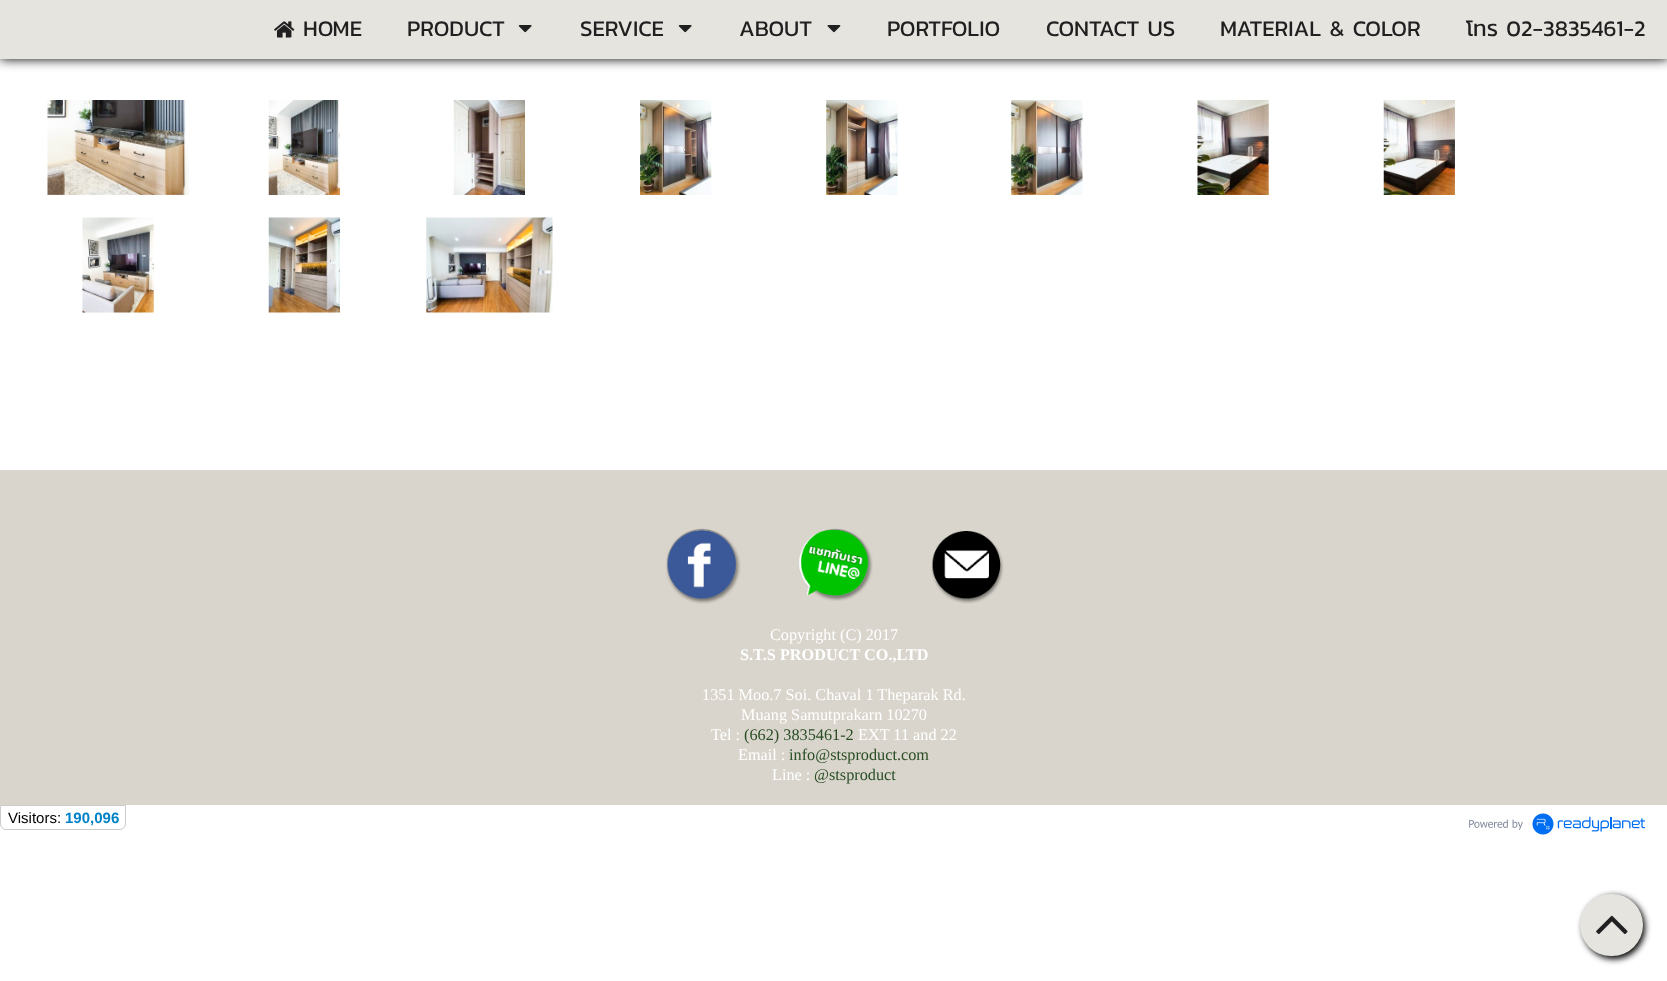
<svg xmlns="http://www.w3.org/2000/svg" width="1667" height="981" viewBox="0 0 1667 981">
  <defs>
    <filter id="blur1" x="-50%" y="-200%" width="200%" height="500%"><feGaussianBlur stdDeviation="6"/></filter>
    <filter id="blur2" x="-50%" y="-200%" width="200%" height="500%"><feGaussianBlur stdDeviation="3"/></filter>
  </defs>
  <rect width="100%" height="100%" fill="#ffffff"/>
  <rect x="0" y="0" width="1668" height="59" fill="#000000" filter="url(#blur1)"/>
  <rect x="0" y="0" width="1667" height="59" fill="#e6e4df"/>
  <image x="274" y="21" width="21" height="17" href="img1.png"/>
  <text x="303" y="36" font-family="Kanit" font-size="22.5" fill="#202020">HOME</text>
  <text x="407" y="36" font-family="Kanit" font-size="22.5" fill="#202020">PRODUCT</text>
  <image x="518" y="25" width="14" height="8" href="img2.png"/>
  <text x="580" y="36" font-family="Kanit" font-size="22.5" fill="#202020">SERVICE</text>
  <image x="678" y="25" width="14" height="8" href="img2.png"/>
  <text x="739" y="36" font-family="Kanit" font-size="22.5" fill="#202020">ABOUT</text>
  <image x="827" y="25" width="14" height="8" href="img3.png"/>
  <text x="887" y="36" font-family="Kanit" font-size="22.5" fill="#202020">PORTFOLIO</text>
  <text x="1046" y="36" font-family="Kanit" font-size="22.5" fill="#202020">CONTACT US</text>
  <text x="1220" y="36" font-family="Kanit" font-size="22.5" fill="#202020">MATERIAL &amp; COLOR</text>
  <text x="1466" y="36" font-family="Kanit" font-size="22.5" fill="#202020">โทร 02-3835461-2</text>
  <image x="47" y="100" width="142" height="95" href="img4.png"/>
  <image x="268" y="100" width="72" height="95" href="img5.png"/>
  <image x="453" y="100" width="72" height="95" href="img6.png"/>
  <image x="640" y="100" width="72" height="95" href="img7.png"/>
  <image x="826" y="100" width="72" height="95" href="img8.png"/>
  <image x="1011" y="100" width="72" height="95" href="img9.png"/>
  <image x="1197" y="100" width="72" height="95" href="img10.png"/>
  <image x="1383" y="100" width="72" height="95" href="img11.png"/>
  <image x="82" y="217" width="72" height="96" href="img12.png"/>
  <image x="268" y="217" width="72" height="96" href="img13.png"/>
  <image x="426" y="217" width="127" height="96" href="img14.png"/>
  <rect x="0" y="470" width="1667" height="335" fill="#d9d5cc"/>
  <image x="666" y="528" width="75" height="76" href="img15.png"/>
  <image x="798" y="528" width="75" height="73" href="img16.png"/>
  <image x="931" y="531" width="73" height="73" href="img17.png"/>
  <text x="770" y="640" font-family="Liberation Serif" font-size="16.25" fill="#ffffff">Copyright (C) 2017</text>
  <text x="740" y="660" font-family="Liberation Serif" font-size="16.25" font-weight="bold" fill="#ffffff">S.T.S PRODUCT CO.,LTD</text>
  <text x="702" y="700" font-family="Liberation Serif" font-size="16.25" fill="#ffffff">1351 Moo.7 Soi. Chaval 1 Theparak Rd.</text>
  <text x="741" y="720" font-family="Liberation Serif" font-size="16.25" fill="#ffffff">Muang Samutprakarn 10270</text>
  <text x="711" y="740" font-family="Liberation Serif" font-size="16.25" fill="#ffffff">Tel :</text>
  <text x="744" y="740" font-family="Liberation Serif" font-size="16.25" fill="#284d23">(662) 3835461-2</text>
  <text x="858" y="740" font-family="Liberation Serif" font-size="16.25" fill="#ffffff">EXT 11 and 22</text>
  <text x="738" y="760" font-family="Liberation Serif" font-size="16.25" fill="#ffffff">Email :</text>
  <text x="789" y="760" font-family="Liberation Serif" font-size="16.25" fill="#284d23">info@stsproduct.com</text>
  <text x="772" y="780" font-family="Liberation Serif" font-size="16.25" fill="#ffffff">Line :</text>
  <text x="814" y="780" font-family="Liberation Serif" font-size="16.25" fill="#284d23">@stsproduct</text>
  <path d="M.5 805.5H125.5V824C125.5 827 123 829.5 120 829.5H6C3 829.5 .5 827 .5 824Z" fill="none" stroke="#cccccc"/>
  <text x="8" y="823" font-family="Liberation Sans" font-size="15" fill="#000000">Visitors:</text>
  <text x="65" y="823" font-family="Liberation Sans" font-size="15" font-weight="bold" fill="#0081c8">190,096</text>
  <image x="1469" y="813" width="176" height="22" href="img18.png"/>
  <rect x="1583" y="896" width="62" height="63" rx="31" fill="#000000" filter="url(#blur2)"/>
  <rect x="1580" y="894" width="63" height="62" rx="31" fill="#e6e4df"/>
  <image x="1596" y="915" width="32" height="19" href="img19.png"/>
</svg>
